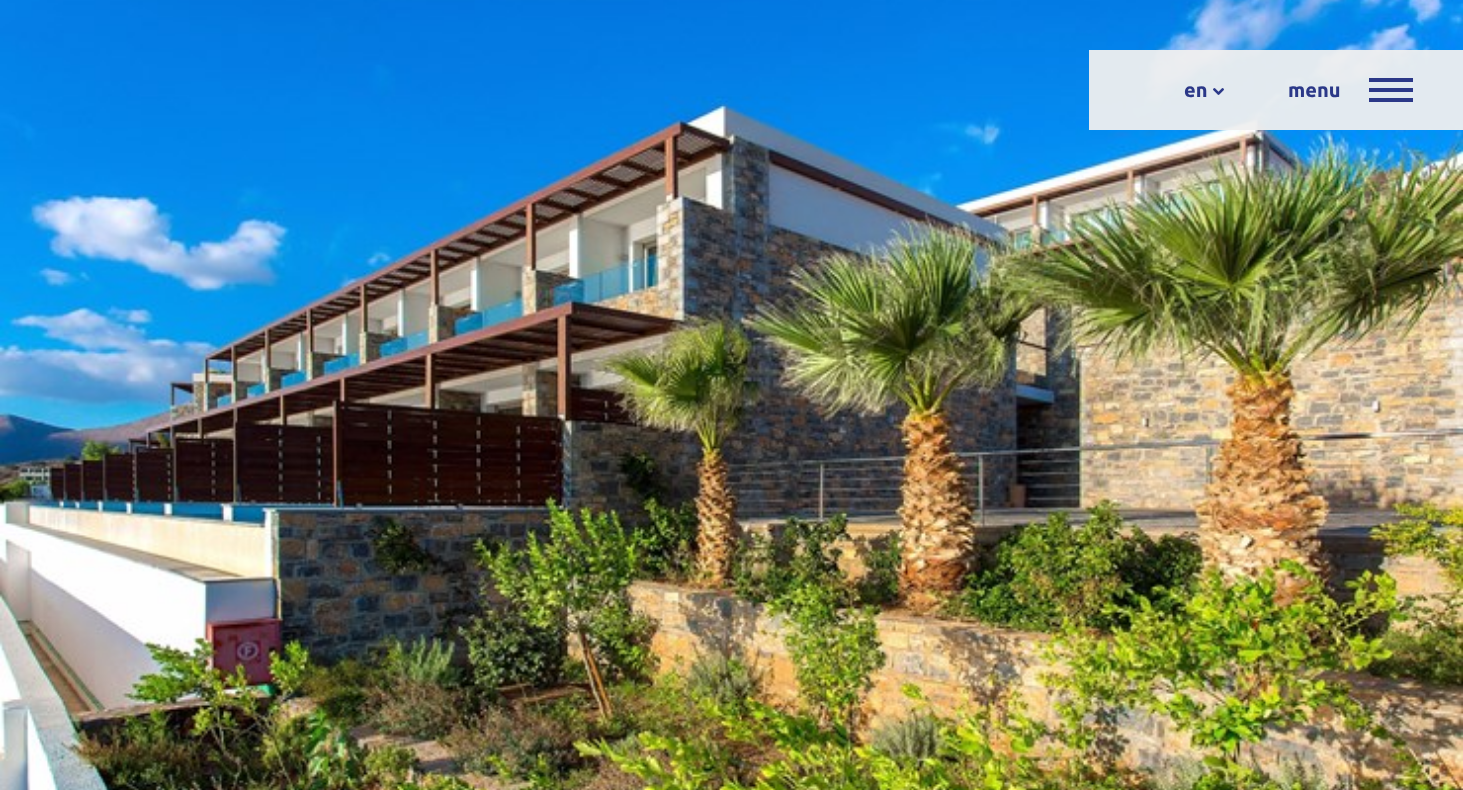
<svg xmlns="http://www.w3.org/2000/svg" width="1463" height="790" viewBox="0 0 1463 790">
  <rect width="100%" height="100%" fill="#ffffff"/>
  <image x="0" y="0" width="1463" height="790" href="img1.png"/>
  <rect x="1089" y="50" width="374" height="80" fill="#efefef" fill-opacity="0.95"/>
  <text x="1184" y="97" font-family="Ubuntu" font-size="20" font-weight="bold" fill="#2b3888">en</text>
  <image x="1213" y="88" width="11" height="7" href="img2.png"/>
  <text x="1288" y="97" font-family="Ubuntu" font-size="20" font-weight="bold" fill="#2b3888">menu</text>
  <rect x="1369" y="78" width="44" height="4" fill="#2b3888"/>
  <rect x="1369" y="88" width="44" height="4" fill="#2b3888"/>
  <rect x="1369" y="98" width="44" height="4" fill="#2b3888"/>
</svg>
